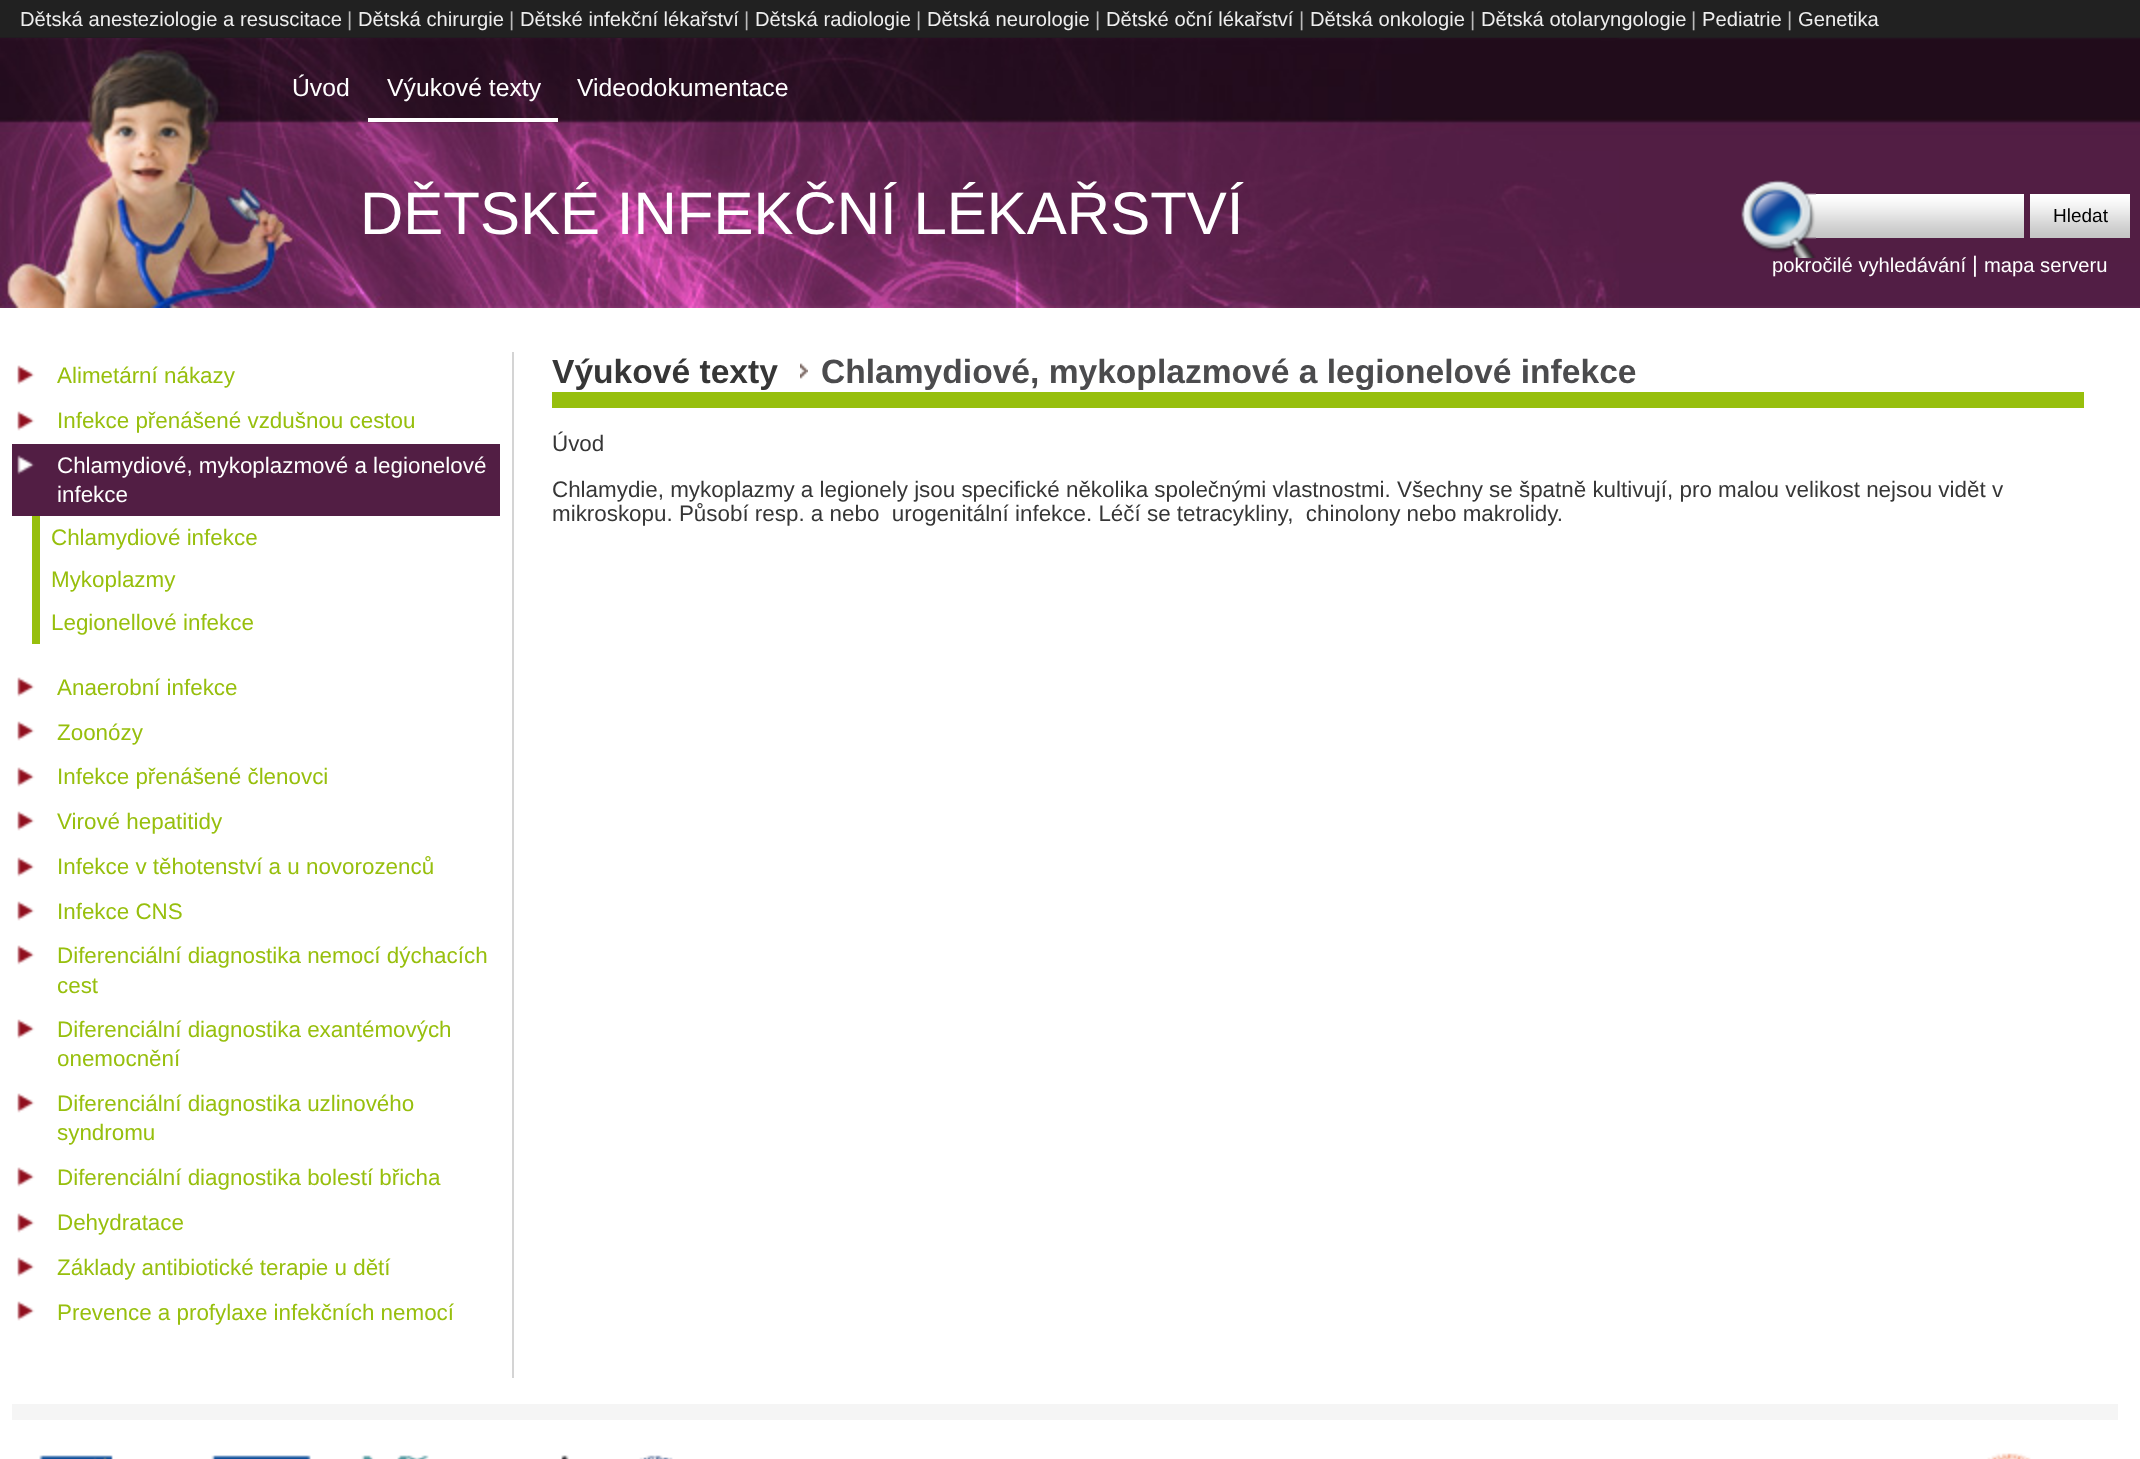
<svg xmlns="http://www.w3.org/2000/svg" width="2140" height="1459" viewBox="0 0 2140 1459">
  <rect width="100%" height="100%" fill="#ffffff"/>
  <image x="0" y="0" width="2140" height="308" href="img1.png"/>
  <text x="20" y="26" font-family="Liberation Sans" font-size="20.2" fill="#eeeeee">Dětská anesteziologie a resuscitace</text>
  <text x="347" y="26" font-family="Liberation Sans" font-size="20.2" fill="#bbbbbb">|</text>
  <text x="358" y="26" font-family="Liberation Sans" font-size="20.2" fill="#eeeeee">Dětská chirurgie</text>
  <text x="509" y="26" font-family="Liberation Sans" font-size="20.2" fill="#bbbbbb">|</text>
  <text x="520" y="26" font-family="Liberation Sans" font-size="20.2" fill="#eeeeee">Dětské infekční lékařství</text>
  <text x="744" y="26" font-family="Liberation Sans" font-size="20.2" fill="#bbbbbb">|</text>
  <text x="755" y="26" font-family="Liberation Sans" font-size="20.2" fill="#eeeeee">Dětská radiologie</text>
  <text x="916" y="26" font-family="Liberation Sans" font-size="20.2" fill="#bbbbbb">|</text>
  <text x="927" y="26" font-family="Liberation Sans" font-size="20.2" fill="#eeeeee">Dětská neurologie</text>
  <text x="1095" y="26" font-family="Liberation Sans" font-size="20.2" fill="#bbbbbb">|</text>
  <text x="1106" y="26" font-family="Liberation Sans" font-size="20.2" fill="#eeeeee">Dětské oční lékařství</text>
  <text x="1299" y="26" font-family="Liberation Sans" font-size="20.2" fill="#bbbbbb">|</text>
  <text x="1310" y="26" font-family="Liberation Sans" font-size="20.2" fill="#eeeeee">Dětská onkologie</text>
  <text x="1470" y="26" font-family="Liberation Sans" font-size="20.2" fill="#bbbbbb">|</text>
  <text x="1481" y="26" font-family="Liberation Sans" font-size="20.2" fill="#eeeeee">Dětská otolaryngologie</text>
  <text x="1691" y="26" font-family="Liberation Sans" font-size="20.2" fill="#bbbbbb">|</text>
  <text x="1702" y="26" font-family="Liberation Sans" font-size="20.2" fill="#eeeeee">Pediatrie</text>
  <text x="1787" y="26" font-family="Liberation Sans" font-size="20.2" fill="#bbbbbb">|</text>
  <text x="1798" y="26" font-family="Liberation Sans" font-size="20.2" fill="#eeeeee">Genetika</text>
  <image x="0" y="38" width="1619" height="270" href="img2.png"/>
  <text x="292" y="96" font-family="Liberation Sans" font-size="24.75" fill="#ffffff">Úvod</text>
  <rect x="368" y="118" width="190" height="4" fill="#ffffff"/>
  <text x="387" y="96" font-family="Liberation Sans" font-size="24.75" fill="#ffffff">Výukové texty</text>
  <text x="577" y="96" font-family="Liberation Sans" font-size="24.75" fill="#ffffff">Videodokumentace</text>
  <text x="360" y="234" font-family="Liberation Sans" font-size="60" fill="#ffffff">DĚTSKÉ INFEKČNÍ LÉKAŘSTVÍ</text>
  <image x="1741" y="180" width="75" height="78" href="img3.png"/>
  <image x="1816" y="194" width="208" height="44" href="img4.png"/>
  <image x="2030" y="194" width="100" height="44" href="img5.png"/>
  <text x="2053" y="222" font-family="Liberation Sans" font-size="19" fill="#000000">Hledat</text>
  <text x="1772" y="272" font-family="Liberation Sans" font-size="20.2" fill="#ffffff">pokročilé vyhledávání</text>
  <text x="1972" y="272" font-family="Liberation Sans" font-size="22.4" fill="#ffffff">|</text>
  <text x="1984" y="272" font-family="Liberation Sans" font-size="20.2" fill="#ffffff">mapa serveru</text>
  <rect x="12" y="1404" width="2106" height="16" fill="#f5f5f5"/>
  <rect x="512" y="352" width="2" height="1026" fill="#d4d4d4"/>
  <image x="17" y="365" width="18" height="20" href="img6.png"/>
  <text x="57" y="383" font-family="Liberation Sans" font-size="22.4" fill="#97bf0d">Alimetární nákazy</text>
  <image x="17" y="411" width="18" height="20" href="img6.png"/>
  <text x="57" y="428" font-family="Liberation Sans" font-size="22.4" fill="#97bf0d">Infekce přenášené vzdušnou cestou</text>
  <rect x="12" y="444" width="488" height="72" fill="#521e44"/>
  <image x="17" y="455" width="18" height="20" href="img7.png"/>
  <text x="57" y="473" font-family="Liberation Sans" font-size="22.4" fill="#ffffff">Chlamydiové, mykoplazmové a legionelové</text>
  <text x="57" y="502" font-family="Liberation Sans" font-size="22.4" fill="#ffffff">infekce</text>
  <rect x="32" y="516" width="8" height="128" fill="#97bf0d"/>
  <text x="51" y="545" font-family="Liberation Sans" font-size="22.4" fill="#97bf0d">Chlamydiové infekce</text>
  <text x="51" y="587" font-family="Liberation Sans" font-size="22.4" fill="#97bf0d">Mykoplazmy</text>
  <text x="51" y="630" font-family="Liberation Sans" font-size="22.4" fill="#97bf0d">Legionellové infekce</text>
  <image x="17" y="677" width="18" height="20" href="img6.png"/>
  <text x="57" y="695" font-family="Liberation Sans" font-size="22.4" fill="#97bf0d">Anaerobní infekce</text>
  <image x="17" y="721" width="18" height="20" href="img6.png"/>
  <text x="57" y="740" font-family="Liberation Sans" font-size="22.4" fill="#97bf0d">Zoonózy</text>
  <image x="17" y="767" width="18" height="20" href="img6.png"/>
  <text x="57" y="784" font-family="Liberation Sans" font-size="22.4" fill="#97bf0d">Infekce přenášené členovci</text>
  <image x="17" y="811" width="18" height="20" href="img6.png"/>
  <text x="57" y="829" font-family="Liberation Sans" font-size="22.4" fill="#97bf0d">Virové hepatitidy</text>
  <image x="17" y="857" width="18" height="20" href="img6.png"/>
  <text x="57" y="874" font-family="Liberation Sans" font-size="22.4" fill="#97bf0d">Infekce v těhotenství a u novorozenců</text>
  <image x="17" y="901" width="18" height="20" href="img6.png"/>
  <text x="57" y="919" font-family="Liberation Sans" font-size="22.4" fill="#97bf0d">Infekce CNS</text>
  <image x="17" y="945" width="18" height="20" href="img6.png"/>
  <text x="57" y="963" font-family="Liberation Sans" font-size="22.4" fill="#97bf0d">Diferenciální diagnostika nemocí dýchacích</text>
  <text x="57" y="993" font-family="Liberation Sans" font-size="22.4" fill="#97bf0d">cest</text>
  <image x="17" y="1019" width="18" height="20" href="img6.png"/>
  <text x="57" y="1037" font-family="Liberation Sans" font-size="22.4" fill="#97bf0d">Diferenciální diagnostika exantémových</text>
  <text x="57" y="1066" font-family="Liberation Sans" font-size="22.4" fill="#97bf0d">onemocnění</text>
  <image x="17" y="1093" width="18" height="20" href="img6.png"/>
  <text x="57" y="1111" font-family="Liberation Sans" font-size="22.4" fill="#97bf0d">Diferenciální diagnostika uzlinového</text>
  <text x="57" y="1140" font-family="Liberation Sans" font-size="22.4" fill="#97bf0d">syndromu</text>
  <image x="17" y="1167" width="18" height="20" href="img6.png"/>
  <text x="57" y="1185" font-family="Liberation Sans" font-size="22.4" fill="#97bf0d">Diferenciální diagnostika bolestí břicha</text>
  <image x="17" y="1213" width="18" height="20" href="img6.png"/>
  <text x="57" y="1230" font-family="Liberation Sans" font-size="22.4" fill="#97bf0d">Dehydratace</text>
  <image x="17" y="1257" width="18" height="20" href="img6.png"/>
  <text x="57" y="1275" font-family="Liberation Sans" font-size="22.4" fill="#97bf0d">Základy antibiotické terapie u dětí</text>
  <image x="17" y="1301" width="18" height="20" href="img6.png"/>
  <text x="57" y="1320" font-family="Liberation Sans" font-size="22.4" fill="#97bf0d">Prevence a profylaxe infekčních nemocí</text>
  <rect x="552" y="392" width="1532" height="16" fill="#97bf0d"/>
  <text x="552" y="383" font-family="Liberation Sans" font-size="33.6" font-weight="bold" fill="#363636">Výukové texty</text>
  <image x="800" y="363" width="8" height="16" href="img8.png"/>
  <text x="821" y="383" font-family="Liberation Sans" font-size="33.6" font-weight="bold" fill="#4b4b4d">Chlamydiové, mykoplazmové a legionelové infekce</text>
  <text x="552" y="451" font-family="Liberation Sans" font-size="22.4" fill="#363636">Úvod</text>
  <text x="552" y="497" font-family="Liberation Sans" font-size="22.4" fill="#363636">Chlamydie, mykoplazmy a legionely jsou specifické několika společnými vlastnostmi. Všechny se špatně kultivují, pro malou velikost nejsou vidět v</text>
  <text x="552" y="521" font-family="Liberation Sans" font-size="22.4" fill="#363636" xml:space="preserve">mikroskopu. Působí resp. a nebo  urogenitální infekce. Léčí se tetracykliny,  chinolony nebo makrolidy.</text>
  <image x="39" y="1455" width="634" height="4" href="img9.png"/>
  <image x="1987" y="1453" width="44" height="6" href="img10.png"/>
</svg>
